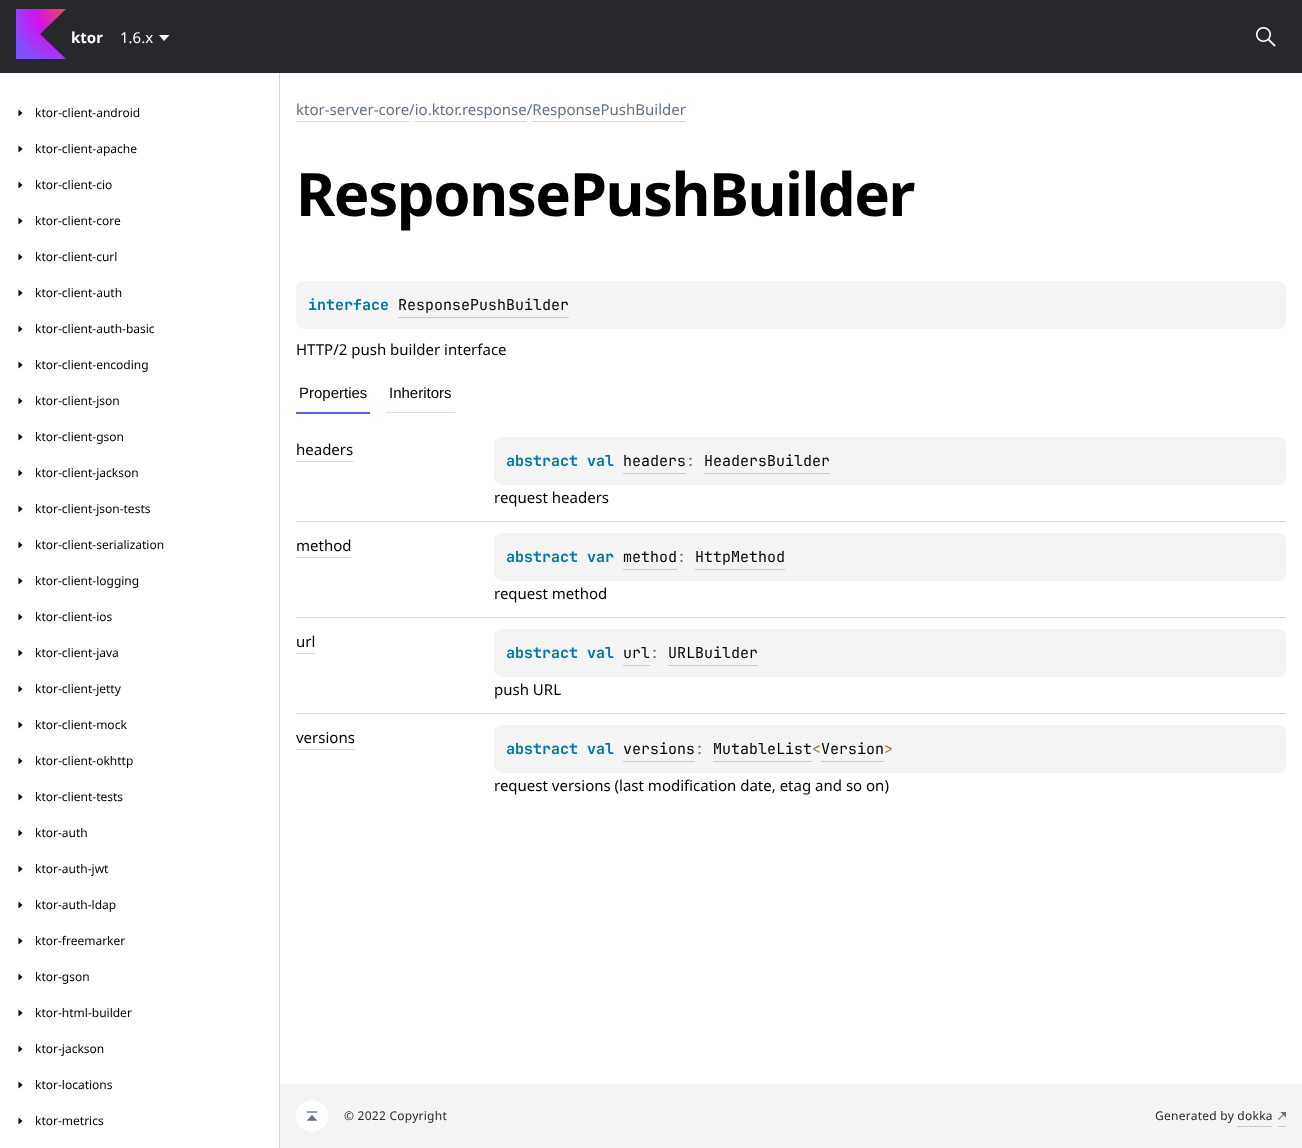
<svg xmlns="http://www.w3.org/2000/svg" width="1302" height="1148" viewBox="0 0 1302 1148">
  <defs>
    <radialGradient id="g1" gradientUnits="userSpaceOnUse" cx="64" cy="11" r="57"><stop offset="0" stop-color="#ef4857"/><stop offset="0.47" stop-color="#d211ec"/><stop offset="1" stop-color="#7f52ff"/></radialGradient>
  </defs>
  <rect width="100%" height="100%" fill="#ffffff"/>
  <rect x="0" y="0" width="1302" height="73" fill="#27282c"/>
  <path d="M66 59H16V9H66L40 34Z" fill="url(#g1)"/>
  <text x="71" y="43" font-family="Noto Sans" font-size="15" font-weight="bold" fill="#ffffff">ktor</text>
  <text x="120" y="43" font-family="Noto Sans" font-size="15" fill="#ffffff">1.6.x</text>
  <path d="M164 41L159 35H169.5Z" fill="#ffffff"/>
  <image x="1256" y="27" width="20" height="20" href="img1.png"/>
  <rect x="279" y="73" width="1" height="1075" fill="#d4d4d5"/>
  <path d="M22.5 113L18.5 116.5V109.5Z" fill="#000000"/>
  <text x="35" y="117" font-family="Noto Sans" font-size="12" fill="#000000">ktor-client-android</text>
  <path d="M22.5 149L18.5 152.5V145.5Z" fill="#000000"/>
  <text x="35" y="153" font-family="Noto Sans" font-size="12" fill="#000000">ktor-client-apache</text>
  <path d="M22.5 185L18.5 188.5V181.5Z" fill="#000000"/>
  <text x="35" y="189" font-family="Noto Sans" font-size="12" fill="#000000">ktor-client-cio</text>
  <path d="M22.5 221L18.5 224.5V217.5Z" fill="#000000"/>
  <text x="35" y="225" font-family="Noto Sans" font-size="12" fill="#000000">ktor-client-core</text>
  <path d="M22.5 257L18.5 260.5V253.5Z" fill="#000000"/>
  <text x="35" y="261" font-family="Noto Sans" font-size="12" fill="#000000">ktor-client-curl</text>
  <path d="M22.5 293L18.5 296.5V289.5Z" fill="#000000"/>
  <text x="35" y="297" font-family="Noto Sans" font-size="12" fill="#000000">ktor-client-auth</text>
  <path d="M22.5 329L18.5 332.5V325.5Z" fill="#000000"/>
  <text x="35" y="333" font-family="Noto Sans" font-size="12" fill="#000000">ktor-client-auth-basic</text>
  <path d="M22.5 365L18.5 368.5V361.5Z" fill="#000000"/>
  <text x="35" y="369" font-family="Noto Sans" font-size="12" fill="#000000">ktor-client-encoding</text>
  <path d="M22.5 401L18.5 404.5V397.5Z" fill="#000000"/>
  <text x="35" y="405" font-family="Noto Sans" font-size="12" fill="#000000">ktor-client-json</text>
  <path d="M22.5 437L18.5 440.5V433.5Z" fill="#000000"/>
  <text x="35" y="441" font-family="Noto Sans" font-size="12" fill="#000000">ktor-client-gson</text>
  <path d="M22.5 473L18.5 476.5V469.5Z" fill="#000000"/>
  <text x="35" y="477" font-family="Noto Sans" font-size="12" fill="#000000">ktor-client-jackson</text>
  <path d="M22.5 509L18.5 512.5V505.5Z" fill="#000000"/>
  <text x="35" y="513" font-family="Noto Sans" font-size="12" fill="#000000">ktor-client-json-tests</text>
  <path d="M22.5 545L18.5 548.5V541.5Z" fill="#000000"/>
  <text x="35" y="549" font-family="Noto Sans" font-size="12" fill="#000000">ktor-client-serialization</text>
  <path d="M22.5 581L18.5 584.5V577.5Z" fill="#000000"/>
  <text x="35" y="585" font-family="Noto Sans" font-size="12" fill="#000000">ktor-client-logging</text>
  <path d="M22.5 617L18.5 620.5V613.5Z" fill="#000000"/>
  <text x="35" y="621" font-family="Noto Sans" font-size="12" fill="#000000">ktor-client-ios</text>
  <path d="M22.5 653L18.5 656.5V649.5Z" fill="#000000"/>
  <text x="35" y="657" font-family="Noto Sans" font-size="12" fill="#000000">ktor-client-java</text>
  <path d="M22.5 689L18.5 692.5V685.5Z" fill="#000000"/>
  <text x="35" y="693" font-family="Noto Sans" font-size="12" fill="#000000">ktor-client-jetty</text>
  <path d="M22.5 725L18.5 728.5V721.5Z" fill="#000000"/>
  <text x="35" y="729" font-family="Noto Sans" font-size="12" fill="#000000">ktor-client-mock</text>
  <path d="M22.5 761L18.5 764.5V757.5Z" fill="#000000"/>
  <text x="35" y="765" font-family="Noto Sans" font-size="12" fill="#000000">ktor-client-okhttp</text>
  <path d="M22.5 797L18.5 800.5V793.5Z" fill="#000000"/>
  <text x="35" y="801" font-family="Noto Sans" font-size="12" fill="#000000">ktor-client-tests</text>
  <path d="M22.5 833L18.5 836.5V829.5Z" fill="#000000"/>
  <text x="35" y="837" font-family="Noto Sans" font-size="12" fill="#000000">ktor-auth</text>
  <path d="M22.5 869L18.5 872.5V865.5Z" fill="#000000"/>
  <text x="35" y="873" font-family="Noto Sans" font-size="12" fill="#000000">ktor-auth-jwt</text>
  <path d="M22.5 905L18.5 908.5V901.5Z" fill="#000000"/>
  <text x="35" y="909" font-family="Noto Sans" font-size="12" fill="#000000">ktor-auth-ldap</text>
  <path d="M22.5 941L18.5 944.5V937.5Z" fill="#000000"/>
  <text x="35" y="945" font-family="Noto Sans" font-size="12" fill="#000000">ktor-freemarker</text>
  <path d="M22.5 977L18.5 980.5V973.5Z" fill="#000000"/>
  <text x="35" y="981" font-family="Noto Sans" font-size="12" fill="#000000">ktor-gson</text>
  <path d="M22.5 1013L18.5 1016.5V1009.5Z" fill="#000000"/>
  <text x="35" y="1017" font-family="Noto Sans" font-size="12" fill="#000000">ktor-html-builder</text>
  <path d="M22.5 1049L18.5 1052.5V1045.5Z" fill="#000000"/>
  <text x="35" y="1053" font-family="Noto Sans" font-size="12" fill="#000000">ktor-jackson</text>
  <path d="M22.5 1085L18.5 1088.5V1081.5Z" fill="#000000"/>
  <text x="35" y="1089" font-family="Noto Sans" font-size="12" fill="#000000">ktor-locations</text>
  <path d="M22.5 1121L18.5 1124.5V1117.5Z" fill="#000000"/>
  <text x="35" y="1125" font-family="Noto Sans" font-size="12" fill="#000000">ktor-metrics</text>
  <text x="296" y="115" font-family="Noto Sans" font-size="15" fill="#637282">ktor-server-core/io.ktor.response/ResponsePushBuilder</text>
  <rect x="296" y="121" width="113" height="1" fill="#d4d4d5"/>
  <rect x="415" y="121" width="112" height="1" fill="#d4d4d5"/>
  <rect x="532" y="121" width="154" height="1" fill="#d4d4d5"/>
  <text x="296" y="216" font-family="Noto Sans" font-size="60" font-weight="bold" letter-spacing="-1.5" fill="#000000">ResponsePushBuilder</text>
  <rect x="296" y="281" width="990" height="48" rx="8" fill="#f4f4f4"/>
  <text x="308" y="310" font-family="JetBrains Mono" font-size="15" font-weight="bold" fill="#0077aa">interface</text>
  <text x="398" y="310" font-family="JetBrains Mono" font-size="15" fill="#000000">ResponsePushBuilder</text>
  <rect x="398" y="317" width="171" height="1" fill="#cbcbcc"/>
  <text x="296" y="355" font-family="Noto Sans" font-size="15" fill="#000000">HTTP/2 push builder interface</text>
  <rect x="296" y="412" width="74" height="2" fill="#5b5def"/>
  <text x="299" y="398" font-family="Liberation Sans" font-size="15" fill="#000000">Properties</text>
  <rect x="386" y="412" width="69" height="1" fill="#dadfe6"/>
  <text x="389" y="398" font-family="Liberation Sans" font-size="15" fill="#000000">Inheritors</text>
  <rect x="296" y="521" width="990" height="1" fill="#d4d4d5"/>
  <text x="296" y="455" font-family="Noto Sans" font-size="15" fill="#000000">headers</text>
  <rect x="296" y="461" width="57" height="1" fill="#d4d4d5"/>
  <rect x="494" y="437" width="792" height="48" rx="8" fill="#f4f4f4"/>
  <text x="506" y="466" font-family="JetBrains Mono" font-size="15" font-weight="bold" fill="#0077aa">abstract val</text>
  <text x="623" y="466" font-family="JetBrains Mono" font-size="15" fill="#000000">headers</text>
  <rect x="623" y="473" width="63" height="1" fill="#cbcbcc"/>
  <text x="686" y="466" font-family="JetBrains Mono" font-size="15" fill="#9a6e3a">:</text>
  <text x="704" y="466" font-family="JetBrains Mono" font-size="15" fill="#000000">HeadersBuilder</text>
  <rect x="704" y="473" width="126" height="1" fill="#cbcbcc"/>
  <text x="494" y="503" font-family="Noto Sans" font-size="15" fill="#000000">request headers</text>
  <rect x="296" y="617" width="990" height="1" fill="#d4d4d5"/>
  <text x="296" y="551" font-family="Noto Sans" font-size="15" fill="#000000">method</text>
  <rect x="296" y="557" width="55" height="1" fill="#d4d4d5"/>
  <rect x="494" y="533" width="792" height="48" rx="8" fill="#f4f4f4"/>
  <text x="506" y="562" font-family="JetBrains Mono" font-size="15" font-weight="bold" fill="#0077aa">abstract var</text>
  <text x="623" y="562" font-family="JetBrains Mono" font-size="15" fill="#000000">method</text>
  <rect x="623" y="569" width="54" height="1" fill="#cbcbcc"/>
  <text x="677" y="562" font-family="JetBrains Mono" font-size="15" fill="#9a6e3a">:</text>
  <text x="695" y="562" font-family="JetBrains Mono" font-size="15" fill="#000000">HttpMethod</text>
  <rect x="695" y="569" width="90" height="1" fill="#cbcbcc"/>
  <text x="494" y="599" font-family="Noto Sans" font-size="15" fill="#000000">request method</text>
  <rect x="296" y="713" width="990" height="1" fill="#d4d4d5"/>
  <text x="296" y="647" font-family="Noto Sans" font-size="15" fill="#000000">url</text>
  <rect x="296" y="653" width="19" height="1" fill="#d4d4d5"/>
  <rect x="494" y="629" width="792" height="48" rx="8" fill="#f4f4f4"/>
  <text x="506" y="658" font-family="JetBrains Mono" font-size="15" font-weight="bold" fill="#0077aa">abstract val</text>
  <text x="623" y="658" font-family="JetBrains Mono" font-size="15" fill="#000000">url</text>
  <rect x="623" y="665" width="27" height="1" fill="#cbcbcc"/>
  <text x="650" y="658" font-family="JetBrains Mono" font-size="15" fill="#9a6e3a">:</text>
  <text x="668" y="658" font-family="JetBrains Mono" font-size="15" fill="#000000">URLBuilder</text>
  <rect x="668" y="665" width="90" height="1" fill="#cbcbcc"/>
  <text x="494" y="695" font-family="Noto Sans" font-size="15" fill="#000000">push URL</text>
  <text x="296" y="743" font-family="Noto Sans" font-size="15" fill="#000000">versions</text>
  <rect x="296" y="749" width="59" height="1" fill="#d4d4d5"/>
  <rect x="494" y="725" width="792" height="48" rx="8" fill="#f4f4f4"/>
  <text x="506" y="754" font-family="JetBrains Mono" font-size="15" font-weight="bold" fill="#0077aa">abstract val</text>
  <text x="623" y="754" font-family="JetBrains Mono" font-size="15" fill="#000000">versions</text>
  <rect x="623" y="761" width="72" height="1" fill="#cbcbcc"/>
  <text x="695" y="754" font-family="JetBrains Mono" font-size="15" fill="#9a6e3a">:</text>
  <text x="713" y="754" font-family="JetBrains Mono" font-size="15" fill="#000000">MutableList Version</text>
  <rect x="713" y="761" width="99" height="1" fill="#cbcbcc"/>
  <text x="812" y="754" font-family="JetBrains Mono" font-size="15" fill="#9a6e3a">&lt;</text>
  <text x="884" y="754" font-family="JetBrains Mono" font-size="15" fill="#9a6e3a">&gt;</text>
  <rect x="821" y="761" width="63" height="1" fill="#cbcbcc"/>
  <text x="494" y="791" font-family="Noto Sans" font-size="15" fill="#000000">request versions (last modification date, etag and so on)</text>
  <rect x="280" y="1084" width="1022" height="64" fill="#f4f4f4"/>
  <circle cx="312" cy="1116" r="16" fill="#ffffff"/>
  <image x="306" y="1111" width="12" height="10" href="img2.png"/>
  <text x="344" y="1120" font-family="Noto Sans" font-size="12" letter-spacing="0.25" fill="#27282c">© 2022 Copyright</text>
  <text x="1155" y="1120" font-family="Noto Sans" font-size="12" letter-spacing="0.25" fill="#27282c">Generated by dokka</text>
  <image x="1278" y="1112" width="8" height="8" href="img3.png"/>
  <rect x="1237" y="1126" width="35" height="1" fill="#cbcbcc"/>
  <rect x="1278" y="1126" width="8" height="1" fill="#cbcbcc"/>
</svg>
